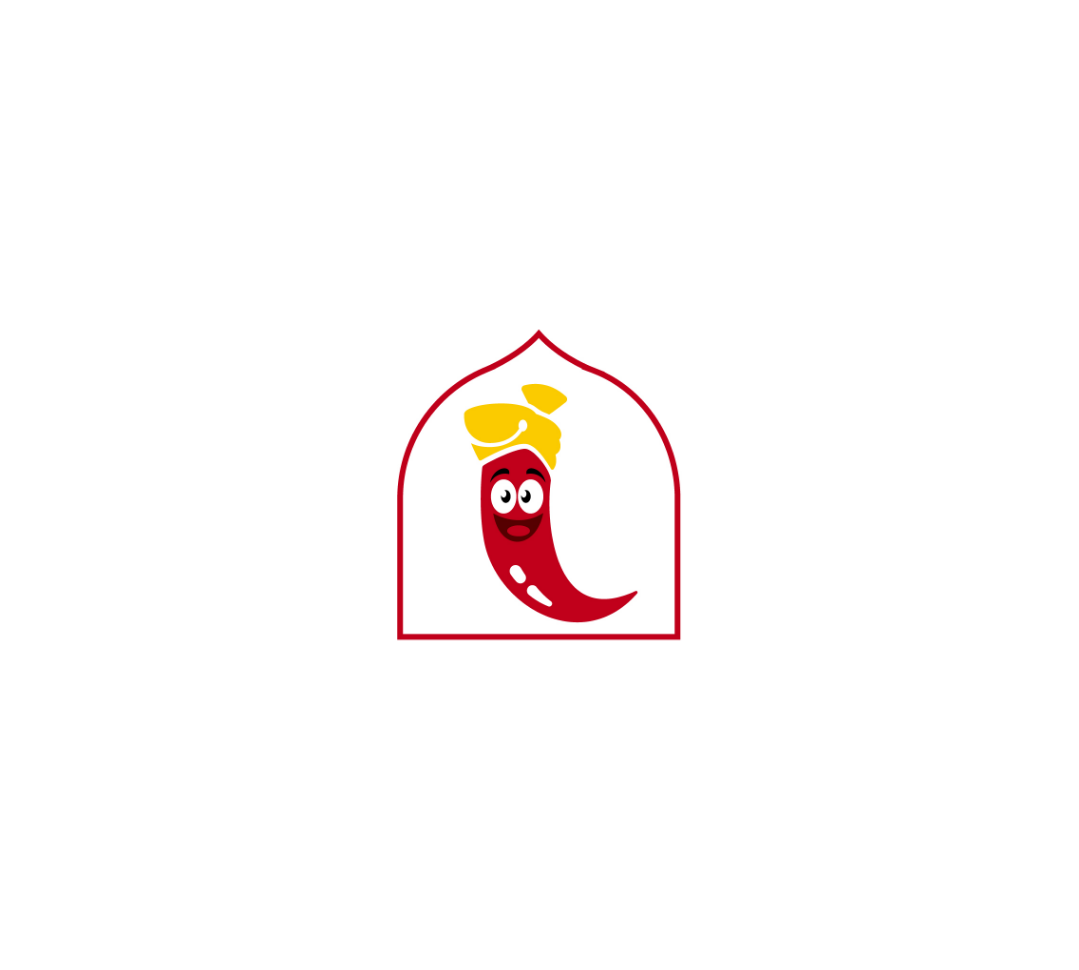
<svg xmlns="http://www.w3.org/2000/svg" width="1079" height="970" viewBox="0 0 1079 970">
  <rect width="100%" height="100%" fill="#ffffff"/>
  <image x="397" y="329" width="285" height="312" href="img1.png"/>
</svg>
